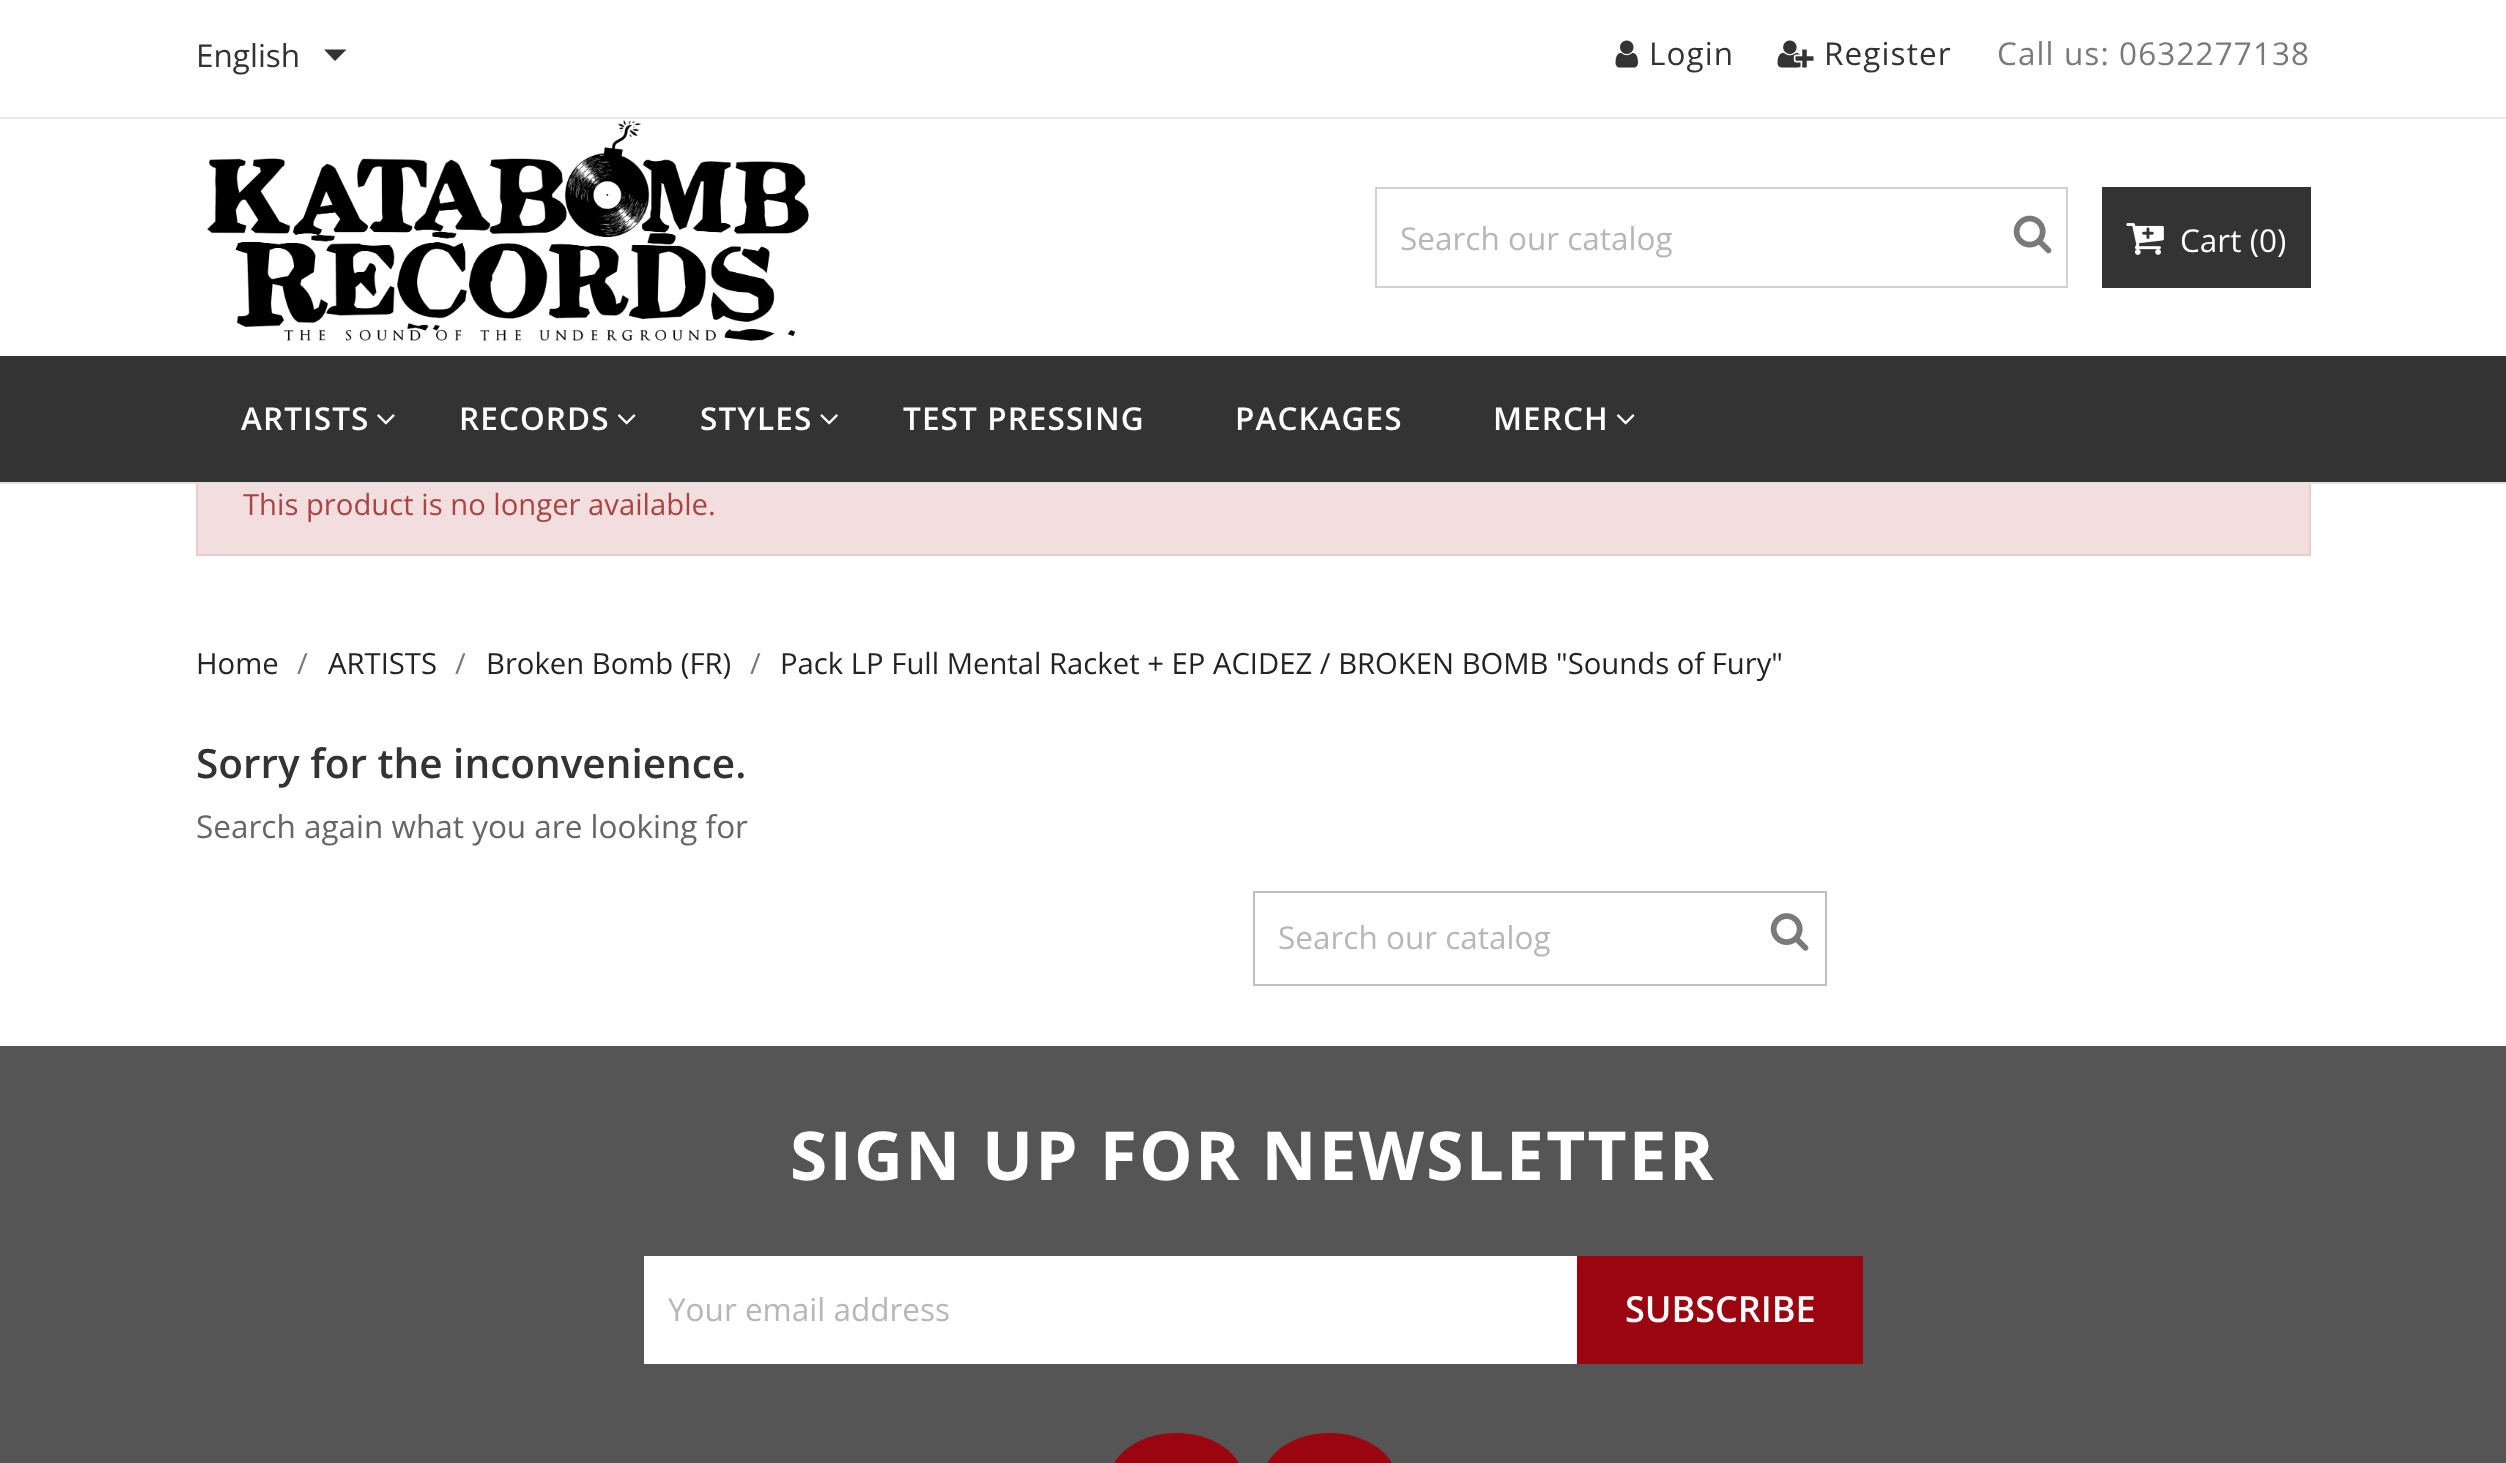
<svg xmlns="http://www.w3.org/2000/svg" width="2506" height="1463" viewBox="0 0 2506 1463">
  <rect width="100%" height="100%" fill="#ffffff"/>
  <rect x="198" y="484" width="2111" height="70" fill="#f2dede"/>
  <rect x="197" y="1" width="2113" height="554" fill="none" stroke="#ebcccc" stroke-width="2"/>
  <rect x="196" y="0" width="2115" height="356" fill="#ffffff"/>
  <rect x="0" y="482" width="2506" height="2" fill="#e1e1e1"/>
  <rect x="0" y="117" width="2506" height="2" fill="#e8e8e8"/>
  <text x="196" y="67" font-family="Open Sans" font-size="31.5" fill="#333333">English</text>
  <path d="M324 49.5H346.5L335 61Z" fill="#333333"/>
  <image x="1615" y="40" width="23" height="28" href="img1.png"/>
  <text x="1649" y="65" font-family="Open Sans" font-size="31.5" letter-spacing="1.1" fill="#333333">Login</text>
  <image x="1777" y="40" width="37" height="28" href="img2.png"/>
  <text x="1824" y="65" font-family="Open Sans" font-size="31.5" letter-spacing="1.1" fill="#333333">Register</text>
  <text x="1997" y="65" font-family="Open Sans" font-size="31.5" letter-spacing="1.1" fill="#7a7a7a">Call us: 0632277138</text>
  <image x="207" y="119" width="602" height="222" href="img3.png"/>
  <rect x="1376" y="188" width="691" height="99" fill="none" stroke="#d1d1d1" stroke-width="2"/>
  <text x="1400" y="250" font-family="Open Sans" font-size="31.5" fill="#b7b7b7">Search our catalog</text>
  <image x="2013" y="215" width="39" height="39" href="img4.png"/>
  <rect x="2102" y="187" width="209" height="101" fill="#333333"/>
  <image x="2126" y="223" width="38" height="32" href="img5.png"/>
  <text x="2180" y="252" font-family="Open Sans" font-size="31.5" fill="#ffffff">Cart (0)</text>
  <rect x="0" y="356" width="2506" height="126" fill="#333333"/>
  <text x="241" y="430" font-family="Open Sans" font-size="31.5" font-weight="600" letter-spacing="1.1" fill="#ffffff">ARTISTS</text>
  <image x="377" y="414" width="18" height="11" href="img6.png"/>
  <text x="459" y="430" font-family="Open Sans" font-size="31.5" font-weight="600" letter-spacing="1.1" fill="#ffffff">RECORDS</text>
  <image x="617" y="414" width="19" height="11" href="img7.png"/>
  <text x="700" y="430" font-family="Open Sans" font-size="31.5" font-weight="600" letter-spacing="1.1" fill="#ffffff">STYLES</text>
  <image x="820" y="414" width="18" height="11" href="img8.png"/>
  <text x="903" y="430" font-family="Open Sans" font-size="31.5" font-weight="600" letter-spacing="1.1" fill="#ffffff">TEST PRESSING</text>
  <text x="1235" y="430" font-family="Open Sans" font-size="31.5" font-weight="600" letter-spacing="1.1" fill="#ffffff">PACKAGES</text>
  <text x="1493" y="430" font-family="Open Sans" font-size="31.5" font-weight="600" letter-spacing="1.1" fill="#ffffff">MERCH</text>
  <image x="1616" y="414" width="19" height="11" href="img7.png"/>
  <text x="243" y="515" font-family="Open Sans" font-size="29.25" fill="#a94442">This product is no longer available.</text>
  <text x="196" y="674" font-family="Open Sans" font-size="29.25" fill="#232323">Home</text>
  <text x="297" y="674" font-family="Open Sans" font-size="29.25" fill="#7a7a7a">/</text>
  <text x="328" y="674" font-family="Open Sans" font-size="29.25" fill="#232323">ARTISTS</text>
  <text x="455" y="674" font-family="Open Sans" font-size="29.25" fill="#7a7a7a">/</text>
  <text x="486" y="674" font-family="Open Sans" font-size="29.25" fill="#232323">Broken Bomb (FR)</text>
  <text x="750" y="674" font-family="Open Sans" font-size="29.25" fill="#7a7a7a">/</text>
  <text x="780" y="674" font-family="Open Sans" font-size="29.25" fill="#232323">Pack LP Full Mental Racket + EP ACIDEZ / BROKEN BOMB "Sounds of Fury"</text>
  <text x="196" y="778" font-family="Open Sans" font-size="40.5" font-weight="600" fill="#333333">Sorry for the inconvenience.</text>
  <text x="196" y="838" font-family="Open Sans" font-size="31.5" fill="#666666">Search again what you are looking for</text>
  <rect x="1254" y="892" width="572" height="93" fill="none" stroke="#bfbfbf" stroke-width="2"/>
  <text x="1278" y="949" font-family="Open Sans" font-size="31.5" fill="#b7b7b7">Search our catalog</text>
  <image x="1770" y="913" width="39" height="38" href="img9.png"/>
  <rect x="0" y="1046" width="2506" height="417" fill="#555555"/>
  <text x="790" y="1180" font-family="Open Sans" font-size="67.5" font-weight="bold" letter-spacing="2.25" fill="#ffffff">SIGN UP FOR NEWSLETTER</text>
  <rect x="644" y="1256" width="933" height="108" fill="#ffffff"/>
  <text x="668" y="1321" font-family="Open Sans" font-size="31.5" fill="#b7b7b7">Your email address</text>
  <rect x="1577" y="1256" width="286" height="108" fill="#9b0510"/>
  <text x="1625" y="1322" font-family="Open Sans" font-size="36" font-weight="600" fill="#ffffff">SUBSCRIBE</text>
  <rect x="1109" y="1433" width="135" height="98" rx="67.5" fill="#9b0510"/>
  <rect x="1262" y="1433" width="135" height="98" rx="67.5" fill="#9b0510"/>
</svg>
